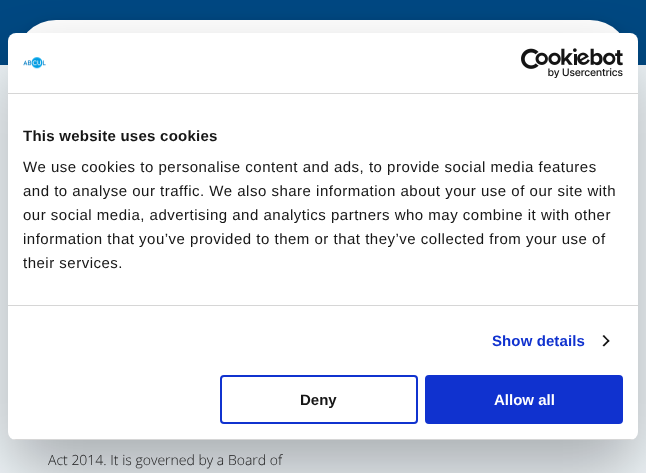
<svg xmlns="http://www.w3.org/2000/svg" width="646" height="473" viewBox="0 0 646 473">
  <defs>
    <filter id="blur1" x="-50%" y="-200%" width="200%" height="500%"><feGaussianBlur stdDeviation="5"/></filter>
    <filter id="blur2" x="-50%" y="-200%" width="200%" height="500%"><feGaussianBlur stdDeviation="34"/></filter>
    <clipPath id="clip1"><rect x="8" y="33" width="630" height="407" rx="8"/></clipPath>
  </defs>
  <rect width="100%" height="100%" fill="#004882"/>
  <rect x="0" y="65" width="646" height="408" fill="#f2f8fc"/>
  <rect x="16" y="20" width="614" height="80" rx="40" fill="#000000" fill-opacity="0.1" filter="url(#blur1)"/>
  <rect x="16" y="20" width="614" height="80" rx="40" fill="#ffffff"/>
  <rect x="8" y="65" width="630" height="407" rx="8" fill="#000000" fill-opacity="0.3" filter="url(#blur2)"/>
  <rect x="8" y="33" width="630" height="407" rx="8" fill="#ffffff"/>
  <rect x="8" y="93" width="630" height="1" fill="#d6d6d6"/>
  <image x="23" y="57" width="23" height="12" href="img1.png"/>
  <image x="521" y="48" width="102" height="30" href="img2.png"/>
  <rect x="8" y="305" width="630" height="1" fill="#d6d6d6"/>
  <text x="23" y="141" font-family="Liberation Sans" font-size="15" font-weight="bold" letter-spacing="0.25" fill="#161616">This website uses cookies</text>
  <text x="23" y="172" font-family="Liberation Sans" font-size="15" letter-spacing="0.5" fill="#161616">We use cookies to personalise content and ads, to provide social media features</text>
  <text x="23" y="196" font-family="Liberation Sans" font-size="15" letter-spacing="0.5" fill="#161616">and to analyse our traffic. We also share information about your use of our site with</text>
  <text x="23" y="220" font-family="Liberation Sans" font-size="15" letter-spacing="0.5" fill="#161616">our social media, advertising and analytics partners who may combine it with other</text>
  <text x="23" y="244" font-family="Liberation Sans" font-size="15" letter-spacing="0.5" fill="#161616">information that you’ve provided to them or that they’ve collected from your use of</text>
  <text x="23" y="268" font-family="Liberation Sans" font-size="15" letter-spacing="0.5" fill="#161616">their services.</text>
  <text x="492" y="346" font-family="Liberation Sans" font-size="15" font-weight="bold" letter-spacing="0.1" fill="#1032cf">Show details</text>
  <path d="M604 335L609.5 341L608.5 342L602.5 336Z" fill="#141414"/>
  <path d="M608.5 339.5L609.5 341L604 346.5L602.5 345.5Z" fill="#141414"/>
  <g clip-path="url(#clip1)">
    <rect x="8" y="439" width="630" height="1" fill="#d6d6d6"/>
  </g>
  <rect x="221" y="376" width="196" height="47" rx="3" fill="none" stroke="#1032cf" stroke-width="2"/>
  <text x="300" y="405" font-family="Liberation Sans" font-size="15" font-weight="bold" fill="#161616">Deny</text>
  <rect x="426" y="376" width="196" height="47" rx="3" fill="#1032cf" stroke="#1032cf" stroke-width="2"/>
  <text x="494" y="405" font-family="Liberation Sans" font-size="15" font-weight="bold" fill="#ffffff">Allow all</text>
  <text x="48" y="465" font-family="Open Sans" font-size="14" font-weight="300" fill="#161616">Act 2014. It is governed by a Board of</text>
</svg>
